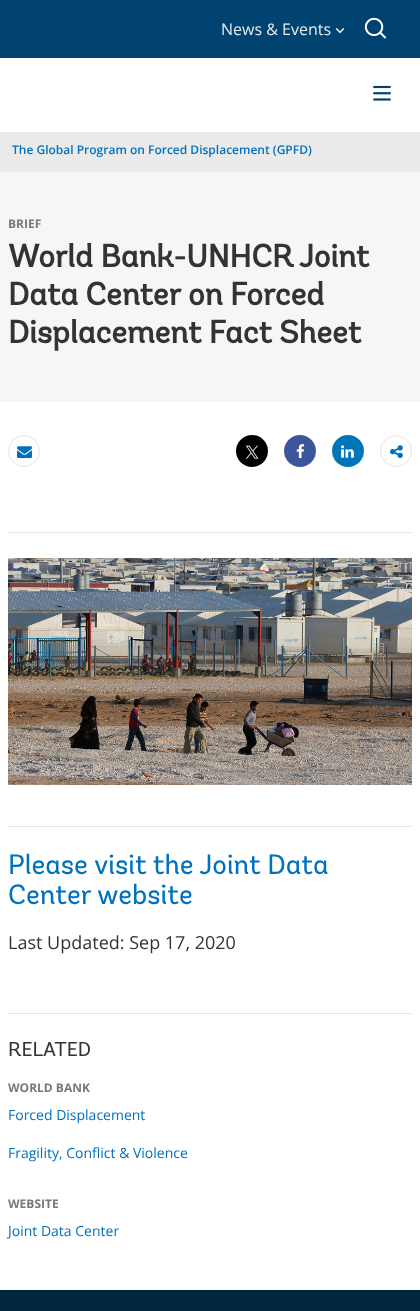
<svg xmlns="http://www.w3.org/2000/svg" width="420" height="1311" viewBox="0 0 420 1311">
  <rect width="100%" height="100%" fill="#ffffff"/>
  <rect x="0" y="0" width="420" height="58" fill="#004370"/>
  <text x="221" y="35" font-family="Open Sans" font-size="16" fill="#e5ecf0">News &amp; Events</text>
  <image x="335" y="28" width="10" height="6" href="img1.png"/>
  <image x="364" y="17" width="23" height="22" href="img2.png"/>
  <image x="373" y="85" width="18" height="16" href="img3.png"/>
  <rect x="0" y="132" width="420" height="40" fill="#eaeaea"/>
  <text x="12" y="154" font-family="Open Sans" font-size="12" font-weight="600" fill="#0071bc">The Global Program on Forced Displacement (GPFD)</text>
  <rect x="0" y="172" width="420" height="230" fill="#f6f6f6"/>
  <text x="8" y="228" font-family="Open Sans" font-size="12" font-weight="bold" fill="#787878">BRIEF</text>
  <text x="8" y="267" font-family="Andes" font-size="32" font-weight="bold" fill="#333333">World Bank-UNHCR Joint</text>
  <text x="8" y="305" font-family="Andes" font-size="32" font-weight="bold" fill="#333333">Data Center on Forced</text>
  <text x="8" y="343" font-family="Andes" font-size="32" font-weight="bold" fill="#333333">Displacement Fact Sheet</text>
  <circle cx="24" cy="451" r="15.5" fill="none" stroke="#e5e5e5"/>
  <image x="17" y="446" width="15" height="13" href="img4.png"/>
  <circle cx="252" cy="451" r="16" fill="#000000"/>
  <image x="245" y="445" width="14" height="14" href="img5.png"/>
  <circle cx="300" cy="451" r="16" fill="#3c569a"/>
  <image x="296" y="444" width="9" height="15" href="img6.png"/>
  <circle cx="348" cy="451" r="16" fill="#0075b7"/>
  <image x="341" y="445" width="13" height="13" href="img7.png"/>
  <circle cx="396" cy="451" r="15.5" fill="none" stroke="#e5e5e5"/>
  <image x="390" y="445" width="13" height="14" href="img8.png"/>
  <rect x="8" y="532" width="404" height="1" fill="#e5e5e5"/>
  <image x="8" y="558" width="404" height="227" href="img9.png"/>
  <rect x="8" y="826" width="404" height="1" fill="#e5e5e5"/>
  <text x="8" y="874" font-family="Andes" font-size="28" fill="#0071bc">Please visit the Joint Data</text>
  <text x="8" y="904" font-family="Andes" font-size="28" fill="#0071bc">Center website</text>
  <text x="8" y="949" font-family="Open Sans" font-size="18" fill="#333333">Last Updated: Sep 17, 2020</text>
  <rect x="8" y="1013" width="404" height="1" fill="#e5e5e5"/>
  <text x="8" y="1056" font-family="Andes" font-size="20" fill="#333333">RELATED</text>
  <text x="8" y="1092" font-family="Open Sans" font-size="12" font-weight="bold" fill="#787878">WORLD BANK</text>
  <text x="8" y="1120" font-family="Open Sans" font-size="14" fill="#0071bc">Forced Displacement</text>
  <text x="8" y="1158" font-family="Open Sans" font-size="14" fill="#0071bc">Fragility, Conflict &amp; Violence</text>
  <text x="8" y="1208" font-family="Open Sans" font-size="12" font-weight="bold" fill="#787878">WEBSITE</text>
  <text x="8" y="1236" font-family="Open Sans" font-size="14" fill="#0071bc">Joint Data Center</text>
  <rect x="0" y="1290" width="420" height="21" fill="#012740"/>
</svg>
